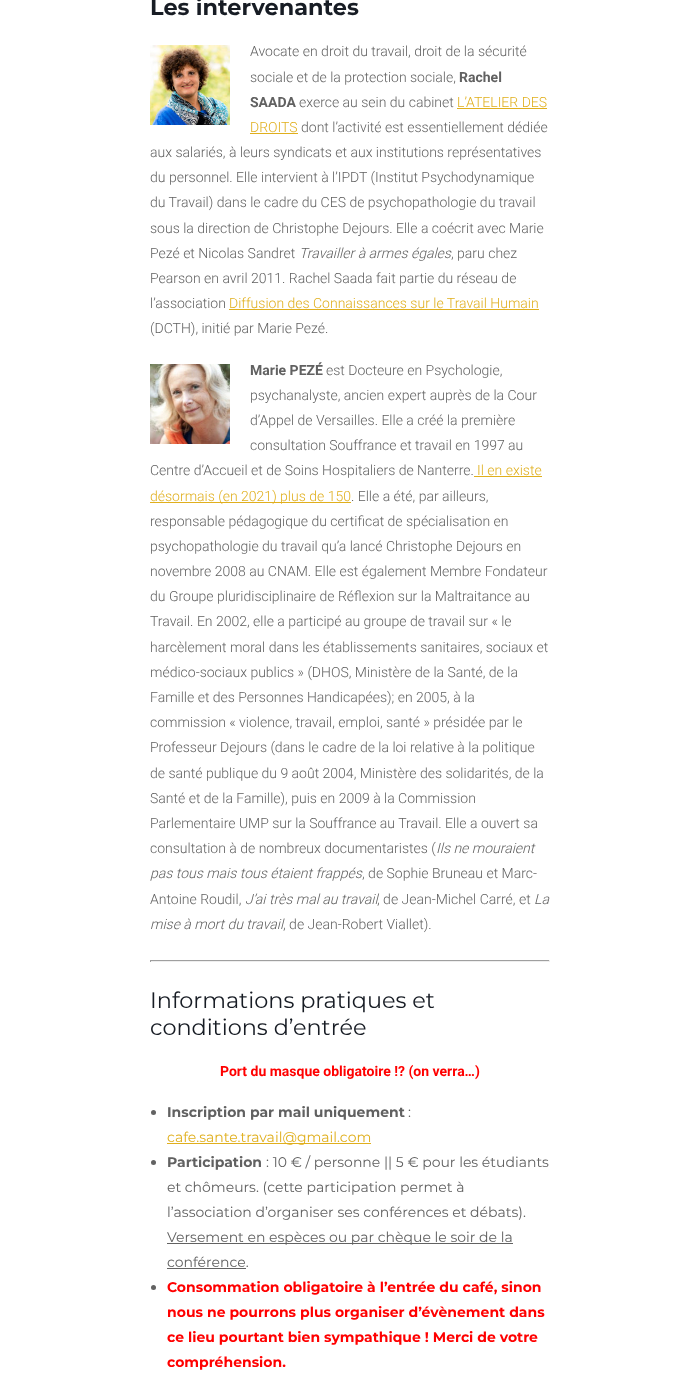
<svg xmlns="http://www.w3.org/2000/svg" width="700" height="1381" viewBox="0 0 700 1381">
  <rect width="100%" height="100%" fill="#ffffff"/>
  <text x="150" y="15" font-family="Montserrat" font-size="22.4" font-weight="bold" fill="#171c24">Les intervenantes</text>
  <image x="150" y="45" width="80" height="80" href="img1.png"/>
  <text x="250" y="56" font-family="Roboto" font-size="14" font-weight="300" fill="#616161">Avocate en droit du travail, droit de la sécurité</text>
  <text x="250" y="82" font-family="Roboto" font-size="14" font-weight="300" fill="#616161">sociale et de la protection sociale,</text>
  <text x="459" y="82" font-family="Roboto" font-size="14" font-weight="bold" fill="#616161">Rachel</text>
  <text x="250" y="107" font-family="Roboto" font-size="14" font-weight="bold" fill="#616161">SAADA</text>
  <text x="299" y="107" font-family="Roboto" font-size="14" font-weight="300" fill="#616161">exerce au sein du cabinet</text>
  <text x="457" y="107" font-family="Roboto" font-size="14" font-weight="300" fill="#e0af1d">L’ATELIER DES</text>
  <rect x="457" y="108" width="90" height="1" fill="#e0af1d"/>
  <text x="250" y="132" font-family="Roboto" font-size="14" font-weight="300" fill="#e0af1d">DROITS</text>
  <rect x="250" y="133" width="48" height="1" fill="#e0af1d"/>
  <text x="301" y="132" font-family="Roboto" font-size="14" font-weight="300" fill="#616161">dont l’activité est essentiellement dédiée</text>
  <text x="150" y="157" font-family="Roboto" font-size="14" font-weight="300" fill="#616161">aux salariés, à leurs syndicats et aux institutions représentatives</text>
  <text x="150" y="182" font-family="Roboto" font-size="14" font-weight="300" fill="#616161">du personnel. Elle intervient à l’IPDT (Institut Psychodynamique</text>
  <text x="150" y="207" font-family="Roboto" font-size="14" font-weight="300" fill="#616161">du Travail) dans le cadre du CES de psychopathologie du travail</text>
  <text x="150" y="233" font-family="Roboto" font-size="14" font-weight="300" fill="#616161">sous la direction de Christophe Dejours. Elle a coécrit avec Marie</text>
  <text x="150" y="258" font-family="Roboto" font-size="14" font-weight="300" fill="#616161">Pezé et Nicolas Sandret</text>
  <text x="299" y="258" font-family="Roboto" font-size="14" font-weight="300" font-style="italic" fill="#616161">Travailler à armes égales</text>
  <text x="451" y="258" font-family="Roboto" font-size="14" font-weight="300" fill="#616161">, paru chez</text>
  <text x="150" y="283" font-family="Roboto" font-size="14" font-weight="300" fill="#616161">Pearson en avril 2011. Rachel Saada fait partie du réseau de</text>
  <text x="150" y="308" font-family="Roboto" font-size="14" font-weight="300" fill="#616161">l’association</text>
  <text x="229" y="308" font-family="Roboto" font-size="14" font-weight="300" fill="#e0af1d">Diffusion des Connaissances sur le Travail Humain</text>
  <rect x="229" y="309" width="310" height="1" fill="#e0af1d"/>
  <text x="150" y="333" font-family="Roboto" font-size="14" font-weight="300" fill="#616161">(DCTH), initié par Marie Pezé.</text>
  <image x="150" y="364" width="80" height="80" href="img2.png"/>
  <text x="250" y="375" font-family="Roboto" font-size="14" font-weight="bold" fill="#616161">Marie PEZÉ</text>
  <text x="326" y="375" font-family="Roboto" font-size="14" font-weight="300" fill="#616161">est Docteure en Psychologie,</text>
  <text x="250" y="400" font-family="Roboto" font-size="14" font-weight="300" fill="#616161">psychanalyste, ancien expert auprès de la Cour</text>
  <text x="250" y="425" font-family="Roboto" font-size="14" font-weight="300" fill="#616161">d’Appel de Versailles. Elle a créé la première</text>
  <text x="250" y="450" font-family="Roboto" font-size="14" font-weight="300" fill="#616161">consultation Souffrance et travail en 1997 au</text>
  <text x="150" y="475" font-family="Roboto" font-size="14" font-weight="300" fill="#616161">Centre d’Accueil et de Soins Hospitaliers de Nanterre.</text>
  <text x="477" y="475" font-family="Roboto" font-size="14" font-weight="300" fill="#e0af1d">Il en existe</text>
  <rect x="474" y="476" width="68" height="1" fill="#e0af1d"/>
  <rect x="150" y="502" width="201" height="1" fill="#e0af1d"/>
  <text x="150" y="501" font-family="Roboto" font-size="14" font-weight="300" fill="#e0af1d">désormais (en 2021) plus de 150</text>
  <text x="351" y="501" font-family="Roboto" font-size="14" font-weight="300" fill="#616161">. Elle a été, par ailleurs,</text>
  <text x="150" y="526" font-family="Roboto" font-size="14" font-weight="300" fill="#616161">responsable pédagogique du certificat de spécialisation en</text>
  <text x="150" y="551" font-family="Roboto" font-size="14" font-weight="300" fill="#616161">psychopathologie du travail qu’a lancé Christophe Dejours en</text>
  <text x="150" y="576" font-family="Roboto" font-size="14" font-weight="300" fill="#616161">novembre 2008 au CNAM. Elle est également Membre Fondateur</text>
  <text x="150" y="601" font-family="Roboto" font-size="14" font-weight="300" fill="#616161">du Groupe pluridisciplinaire de Réflexion sur la Maltraitance au</text>
  <text x="150" y="626" font-family="Roboto" font-size="14" font-weight="300" fill="#616161">Travail. En 2002, elle a participé au groupe de travail sur « le</text>
  <text x="150" y="652" font-family="Roboto" font-size="14" font-weight="300" fill="#616161">harcèlement moral dans les établissements sanitaires, sociaux et</text>
  <text x="150" y="677" font-family="Roboto" font-size="14" font-weight="300" fill="#616161">médico-sociaux publics » (DHOS, Ministère de la Santé, de la</text>
  <text x="150" y="702" font-family="Roboto" font-size="14" font-weight="300" fill="#616161">Famille et des Personnes Handicapées); en 2005, à la</text>
  <text x="150" y="727" font-family="Roboto" font-size="14" font-weight="300" fill="#616161">commission « violence, travail, emploi, santé » présidée par le</text>
  <text x="150" y="752" font-family="Roboto" font-size="14" font-weight="300" fill="#616161">Professeur Dejours (dans le cadre de la loi relative à la politique</text>
  <text x="150" y="778" font-family="Roboto" font-size="14" font-weight="300" fill="#616161">de santé publique du 9 août 2004, Ministère des solidarités, de la</text>
  <text x="150" y="803" font-family="Roboto" font-size="14" font-weight="300" fill="#616161">Santé et de la Famille), puis en 2009 à la Commission</text>
  <text x="150" y="828" font-family="Roboto" font-size="14" font-weight="300" fill="#616161">Parlementaire UMP sur la Souffrance au Travail. Elle a ouvert sa</text>
  <text x="150" y="853" font-family="Roboto" font-size="14" font-weight="300" fill="#616161">consultation à de nombreux documentaristes (</text>
  <text x="436" y="853" font-family="Roboto" font-size="14" font-weight="300" font-style="italic" fill="#616161">Ils ne mouraient</text>
  <text x="150" y="878" font-family="Roboto" font-size="14" font-weight="300" font-style="italic" fill="#616161">pas tous mais tous étaient frappés</text>
  <text x="362" y="878" font-family="Roboto" font-size="14" font-weight="300" fill="#616161">, de Sophie Bruneau et Marc-</text>
  <text x="150" y="904" font-family="Roboto" font-size="14" font-weight="300" fill="#616161">Antoine Roudil,</text>
  <text x="245" y="904" font-family="Roboto" font-size="14" font-weight="300" font-style="italic" fill="#616161">J’ai très mal au travail</text>
  <text x="377" y="904" font-family="Roboto" font-size="14" font-weight="300" fill="#616161">, de Jean-Michel Carré, et</text>
  <text x="534" y="904" font-family="Roboto" font-size="14" font-weight="300" font-style="italic" fill="#616161">La</text>
  <text x="150" y="929" font-family="Roboto" font-size="14" font-weight="300" font-style="italic" fill="#616161">mise à mort du travail</text>
  <text x="283" y="929" font-family="Roboto" font-size="14" font-weight="300" fill="#616161">, de Jean-Robert Viallet).</text>
  <rect x="150" y="960" width="400" height="1" fill="#9f9f9f"/>
  <rect x="549" y="960" width="1" height="2" fill="#eeeeee"/>
  <rect x="150" y="961" width="400" height="1" fill="#eeeeee"/>
  <rect x="150" y="960" width="1" height="2" fill="#9f9f9f"/>
  <text x="150" y="1008" font-family="Montserrat" font-size="22.4" fill="#171c24">Informations pratiques et</text>
  <text x="150" y="1035" font-family="Montserrat" font-size="22.4" fill="#171c24">conditions d’entrée</text>
  <text x="220" y="1076" font-family="Roboto" font-size="14" font-weight="bold" fill="#ff0000">Port du masque obligatoire !? (on verra…)</text>
  <circle cx="153.5" cy="1112.5" r="2.5" fill="#626262"/>
  <text x="167" y="1117" font-family="Montserrat" font-size="14" font-weight="bold" fill="#616161">Inscription par mail uniquement</text>
  <text x="408" y="1117" font-family="Montserrat" font-size="14" fill="#616161">:</text>
  <rect x="167" y="1143" width="204" height="1" fill="#e0af1d"/>
  <text x="167" y="1142" font-family="Montserrat" font-size="14" fill="#e0af1d">cafe.sante.travail@gmail.com</text>
  <circle cx="153.5" cy="1162.5" r="2.5" fill="#626262"/>
  <text x="167" y="1167" font-family="Montserrat" font-size="14" font-weight="bold" fill="#616161">Participation</text>
  <text x="266" y="1167" font-family="Montserrat" font-size="14" fill="#616161">: 10 € / personne || 5 € pour les étudiants</text>
  <text x="167" y="1192" font-family="Montserrat" font-size="14" fill="#616161">et chômeurs. (cette participation permet à</text>
  <text x="167" y="1217" font-family="Montserrat" font-size="14" fill="#616161">l’association d’organiser ses conférences et débats).</text>
  <rect x="167" y="1243" width="346" height="1" fill="#626262"/>
  <text x="167" y="1242" font-family="Montserrat" font-size="14" fill="#616161">Versement en espèces ou par chèque le soir de la</text>
  <text x="167" y="1267" font-family="Montserrat" font-size="14" fill="#616161">conférence.</text>
  <rect x="167" y="1268" width="79" height="1" fill="#626262"/>
  <circle cx="153.5" cy="1287.5" r="2.5" fill="#626262"/>
  <text x="167" y="1292" font-family="Montserrat" font-size="14" font-weight="bold" fill="#ff0000">Consommation obligatoire à l’entrée du café, sinon</text>
  <text x="167" y="1317" font-family="Montserrat" font-size="14" font-weight="bold" fill="#ff0000">nous ne pourrons plus organiser d’évènement dans</text>
  <text x="167" y="1342" font-family="Montserrat" font-size="14" font-weight="bold" fill="#ff0000">ce lieu pourtant bien sympathique ! Merci de votre</text>
  <text x="167" y="1367" font-family="Montserrat" font-size="14" font-weight="bold" fill="#ff0000">compréhension.</text>
</svg>
